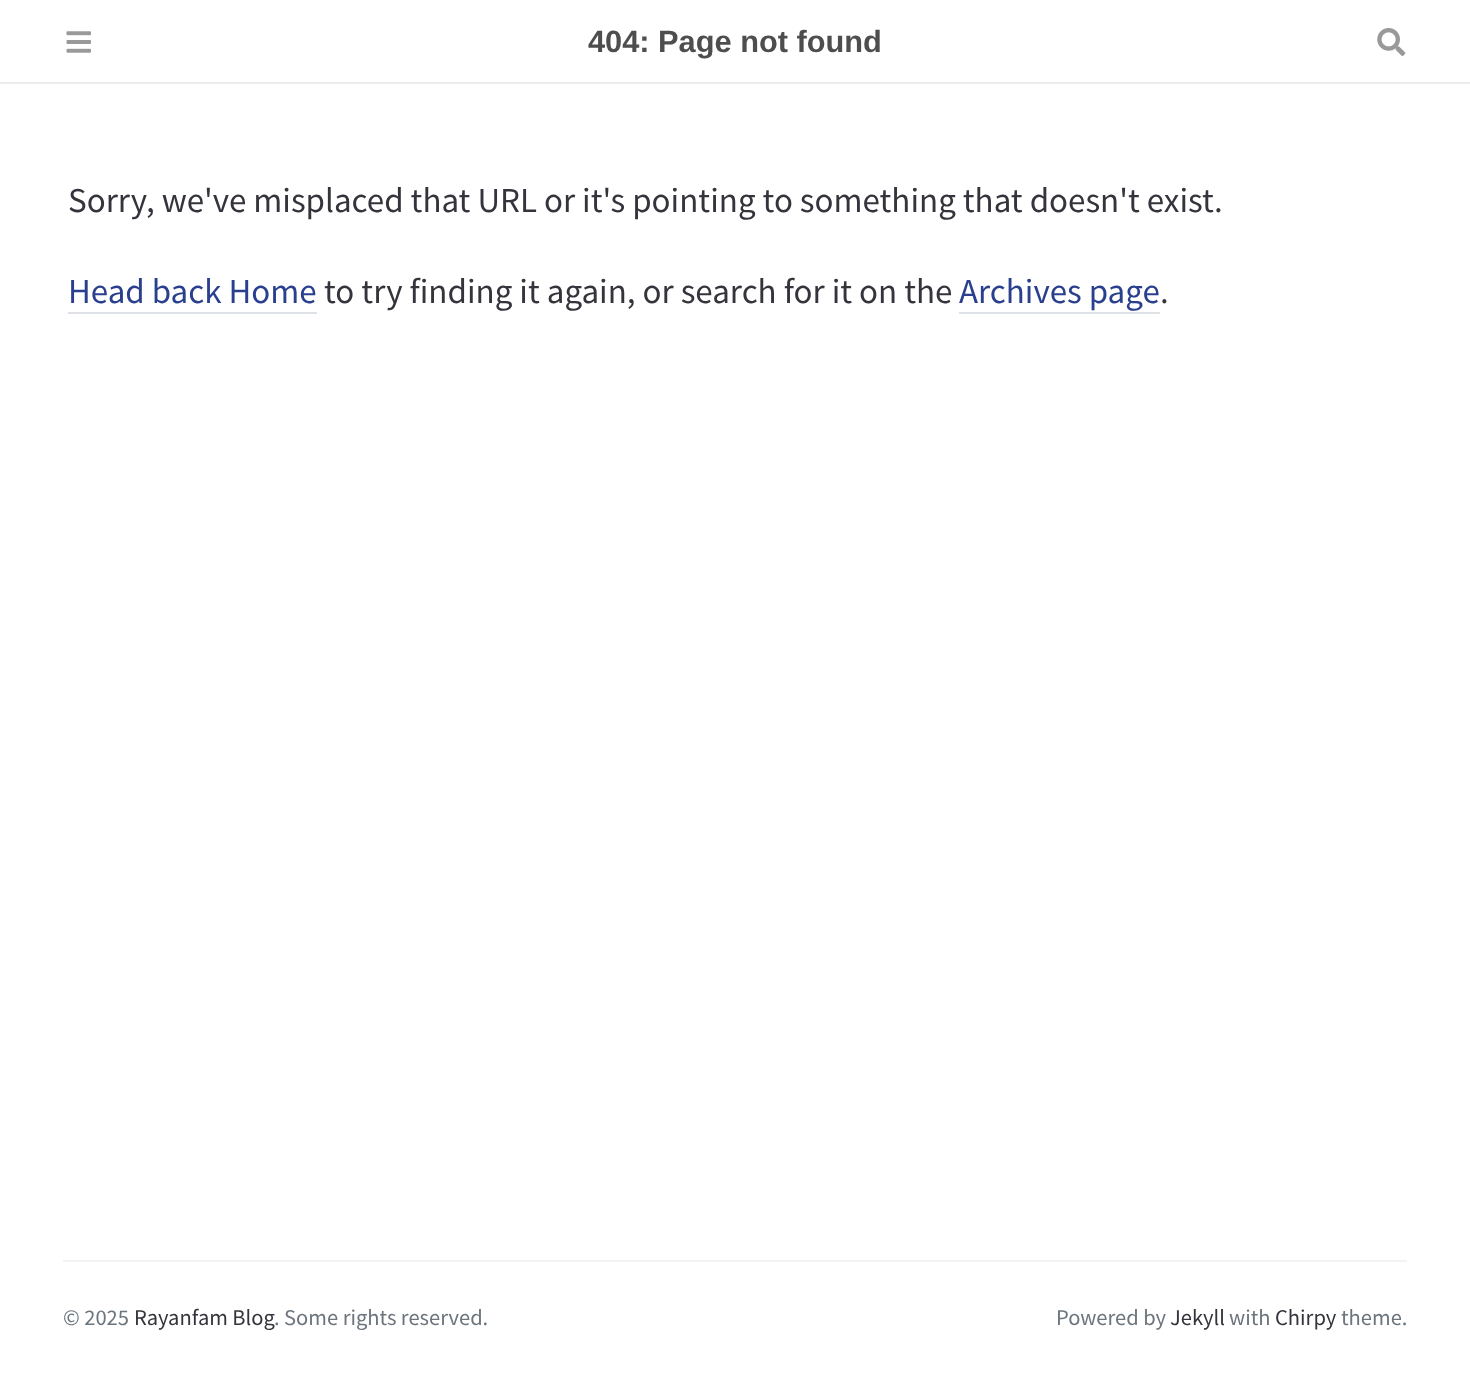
<svg xmlns="http://www.w3.org/2000/svg" width="1470" height="1399" viewBox="0 0 1470 1399">
  <rect width="100%" height="100%" fill="#ffffff"/>
  <rect x="0" y="82" width="1470" height="2" fill="#ededed"/>
  <image x="66" y="31" width="25" height="22" href="img1.png"/>
  <text x="588" y="52" font-family="Liberation Sans" font-size="30.75" font-weight="bold" fill="#4e4e4e">404: Page not found</text>
  <image x="1377" y="28" width="29" height="28" href="img2.png"/>
  <text x="68" y="212" font-family="Source Sans Pro" font-size="35" fill="#34343c">Sorry, we've misplaced that URL or it's pointing to something that doesn't exist.</text>
  <text x="68" y="303" font-family="Source Sans Pro" font-size="35" fill="#2a408e">Head back Home</text>
  <rect x="68" y="312" width="249" height="2" fill="#dee2e6"/>
  <text x="324" y="303" font-family="Source Sans Pro" font-size="35" fill="#34343c">to try finding it again, or search for it on the</text>
  <text x="959" y="303" font-family="Source Sans Pro" font-size="35" fill="#2a408e">Archives page</text>
  <rect x="959" y="312" width="201" height="2" fill="#dee2e6"/>
  <text x="1160" y="303" font-family="Source Sans Pro" font-size="35" fill="#34343c">.</text>
  <rect x="63" y="1260" width="1344" height="2" fill="#f3f3f3"/>
  <text x="63" y="1325" font-family="Source Sans Pro" font-size="22.5" fill="#6c757d">© 2025</text>
  <text x="134" y="1325" font-family="Source Sans Pro" font-size="22.5" fill="#34343c">Rayanfam Blog</text>
  <text x="274" y="1325" font-family="Source Sans Pro" font-size="22.5" fill="#6c757d">. Some rights reserved.</text>
  <text x="1056" y="1325" font-family="Source Sans Pro" font-size="22.5" fill="#6c757d">Powered by</text>
  <text x="1170" y="1325" font-family="Source Sans Pro" font-size="22.5" fill="#34343c">Jekyll</text>
  <text x="1229" y="1325" font-family="Source Sans Pro" font-size="22.5" fill="#6c757d">with</text>
  <text x="1275" y="1325" font-family="Source Sans Pro" font-size="22.5" fill="#34343c">Chirpy</text>
  <text x="1341" y="1325" font-family="Source Sans Pro" font-size="22.5" fill="#6c757d">theme.</text>
</svg>
